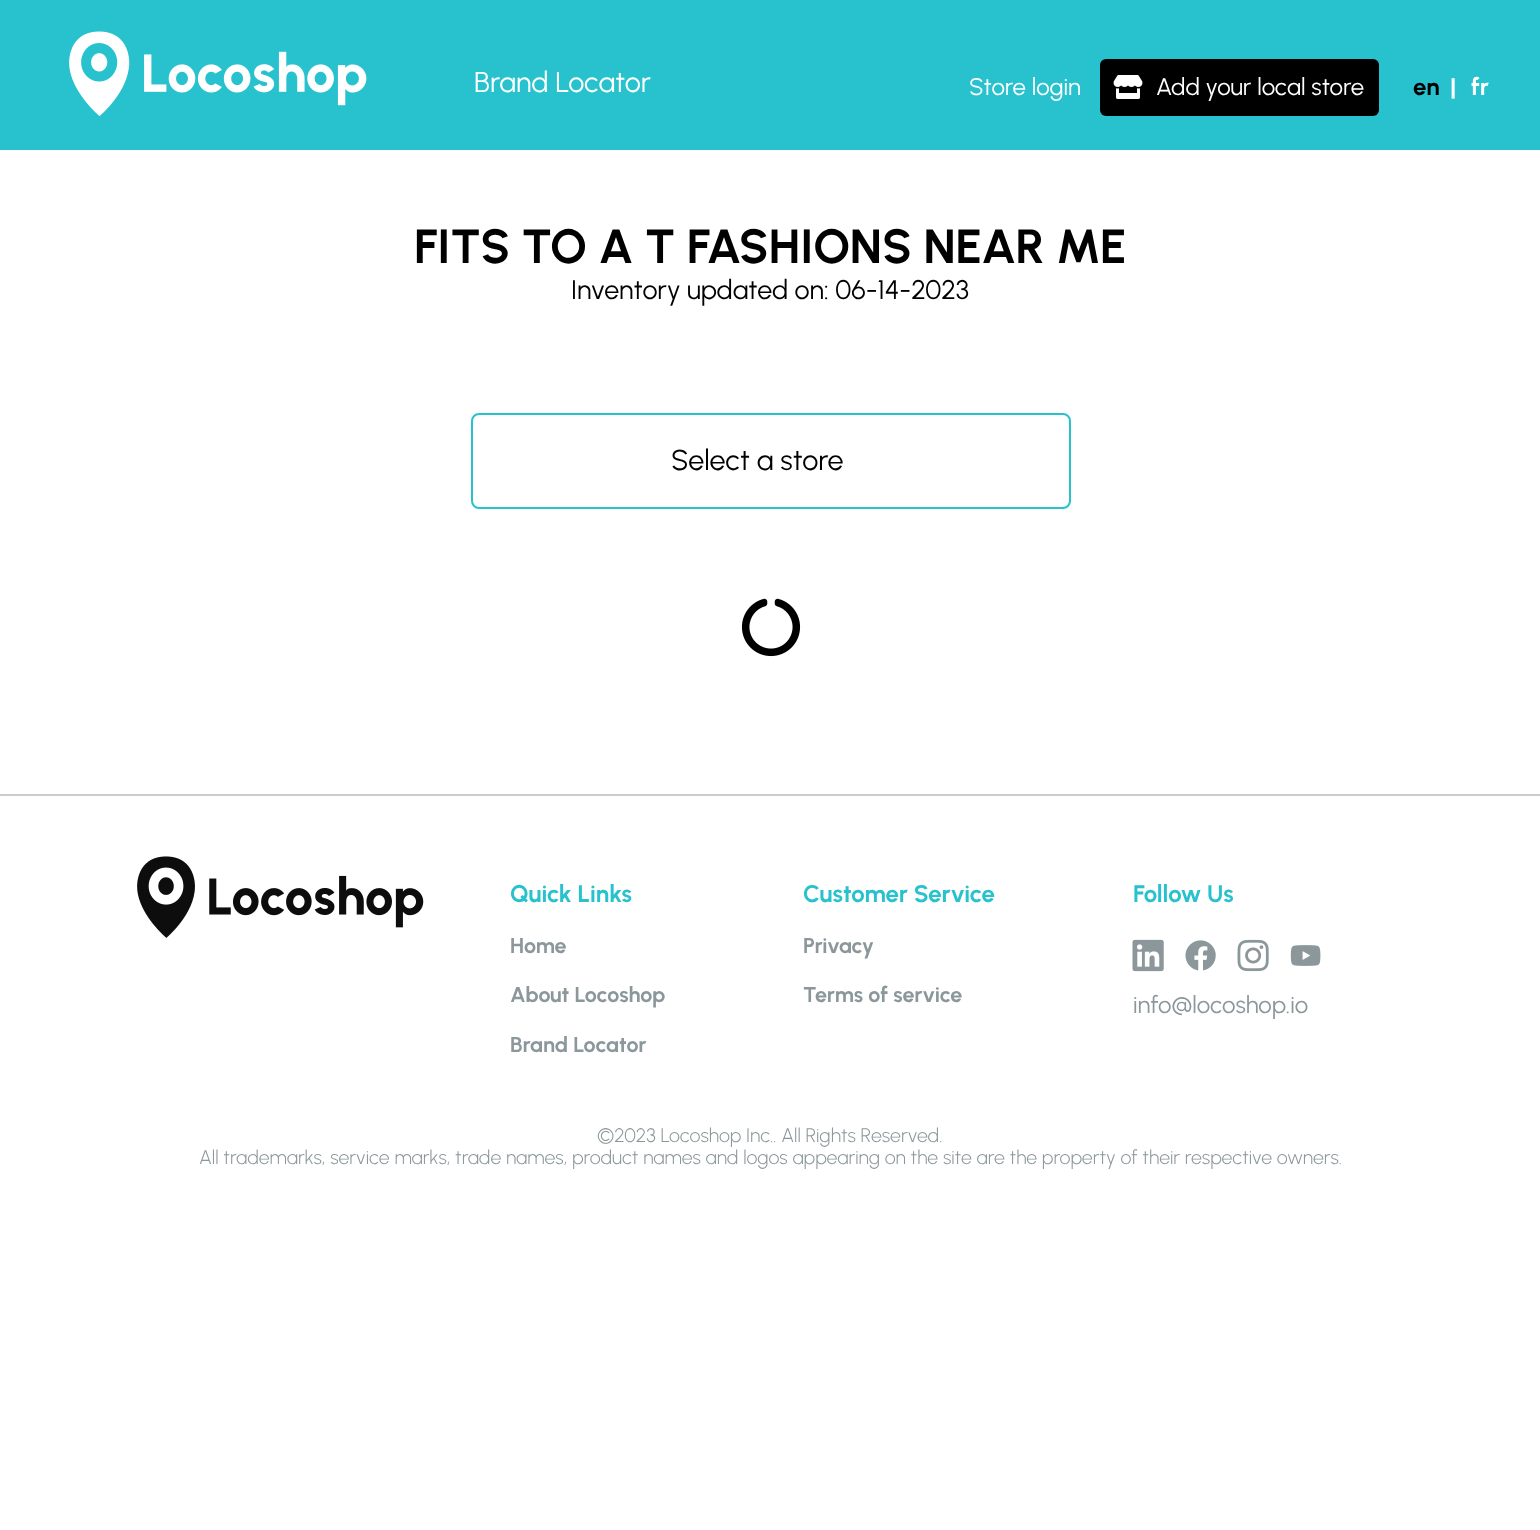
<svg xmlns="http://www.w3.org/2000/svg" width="1540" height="1530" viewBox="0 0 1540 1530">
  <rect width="100%" height="100%" fill="#ffffff"/>
  <rect x="0" y="0" width="1540" height="150" fill="#28c2ce"/>
  <image x="69" y="31" width="298" height="86" href="img1.png"/>
  <text x="474" y="92" font-family="Urbanist" font-size="28.75" fill="#ffffff">Brand Locator</text>
  <text x="969" y="95" font-family="Urbanist" font-size="24" fill="#ffffff">Store login</text>
  <rect x="1100" y="59" width="279" height="57" rx="6" fill="#000000"/>
  <image x="1113" y="75" width="30" height="24" href="img2.png"/>
  <text x="1156" y="95" font-family="Urbanist" font-size="24" fill="#ffffff">Add your local store</text>
  <text x="1413" y="95" font-family="Urbanist" font-size="24" font-weight="bold" fill="#000000">en</text>
  <text x="1450" y="95" font-family="Urbanist" font-size="24" font-weight="bold" fill="#ffffff">|</text>
  <text x="1471" y="95" font-family="Urbanist" font-size="24" font-weight="bold" fill="#ffffff">fr</text>
  <text x="414" y="263" font-family="Urbanist" font-size="48" font-weight="bold" fill="#000000">FITS TO A T FASHIONS NEAR ME</text>
  <text x="571" y="299" font-family="Urbanist" font-size="26.9" fill="#000000">Inventory updated on: 06-14-2023</text>
  <rect x="472" y="414" width="598" height="94" rx="7" fill="none" stroke="#28c2ce" stroke-width="2"/>
  <text x="671" y="470" font-family="Urbanist" font-size="28.75" fill="#000000">Select a store</text>
  <image x="741" y="598" width="60" height="59" href="img3.png"/>
  <rect x="0" y="794" width="1540" height="2" fill="#cccccc"/>
  <image x="137" y="856" width="287" height="82" href="img4.png"/>
  <text x="510" y="902" font-family="Urbanist" font-size="24" font-weight="bold" fill="#28c2ce">Quick Links</text>
  <text x="510" y="953" font-family="Urbanist" font-size="21.5" font-weight="bold" fill="#8b979a">Home</text>
  <text x="510" y="1002" font-family="Urbanist" font-size="21.5" font-weight="bold" fill="#8b979a">About Locoshop</text>
  <text x="510" y="1052" font-family="Urbanist" font-size="21.5" font-weight="bold" fill="#8b979a">Brand Locator</text>
  <text x="803" y="902" font-family="Urbanist" font-size="24" font-weight="bold" fill="#28c2ce">Customer Service</text>
  <text x="803" y="953" font-family="Urbanist" font-size="21.5" font-weight="bold" fill="#8b979a">Privacy</text>
  <text x="803" y="1002" font-family="Urbanist" font-size="21.5" font-weight="bold" fill="#8b979a">Terms of service</text>
  <text x="1133" y="902" font-family="Urbanist" font-size="24" font-weight="bold" fill="#28c2ce">Follow Us</text>
  <image x="1132" y="939" width="32" height="33" href="img5.png"/>
  <image x="1185" y="940" width="31" height="31" href="img6.png"/>
  <image x="1237" y="939" width="32" height="33" href="img7.png"/>
  <image x="1290" y="945" width="31" height="21" href="img8.png"/>
  <text x="1133" y="1013" font-family="Urbanist" font-size="24" fill="#8b979a">info@locoshop.io</text>
  <text x="597" y="1142" font-family="Urbanist" font-size="19.5" font-weight="300" fill="#8b979a">©2023 Locoshop Inc.. All Rights Reserved.</text>
  <text x="199" y="1164" font-family="Urbanist" font-size="19.5" font-weight="300" fill="#8b979a">All trademarks, service marks, trade names, product names and logos appearing on the site are the property of their respective owners.</text>
</svg>
